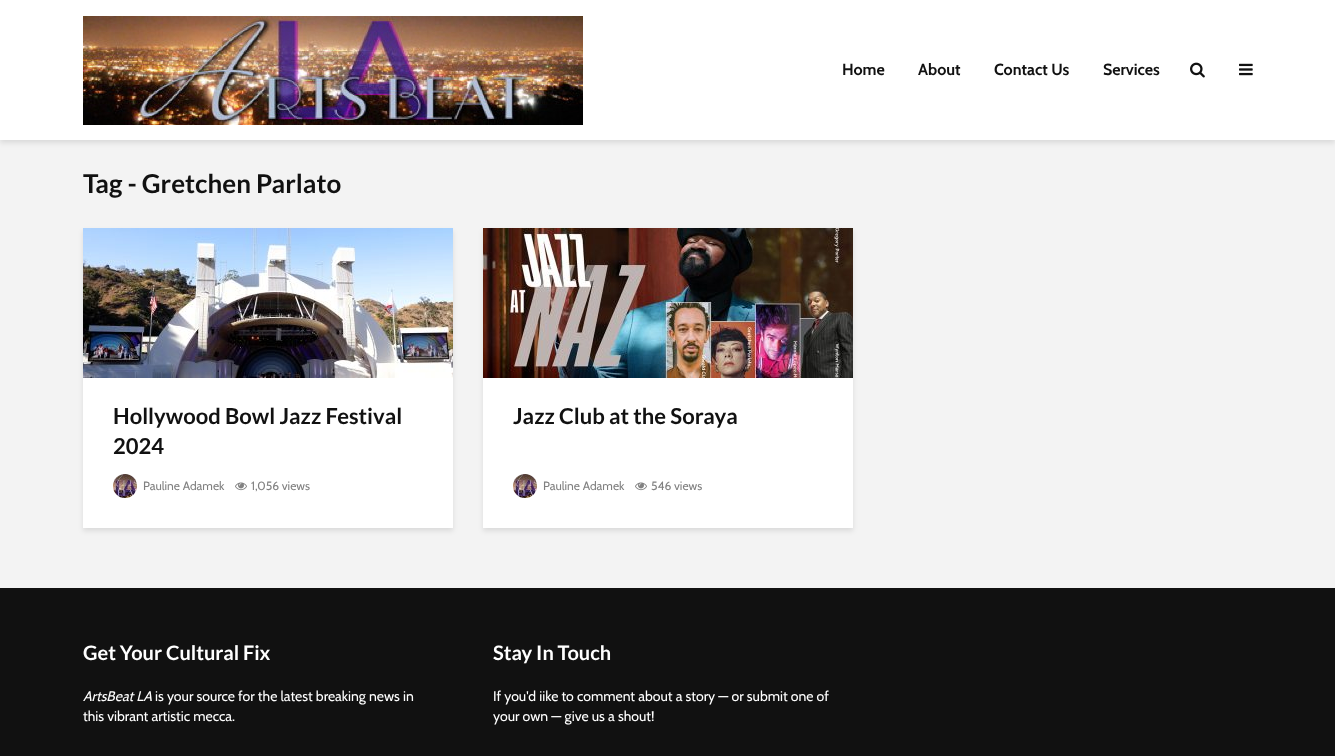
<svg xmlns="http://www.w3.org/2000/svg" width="1335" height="756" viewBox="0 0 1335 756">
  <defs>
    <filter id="blur1" x="-50%" y="-200%" width="200%" height="500%"><feGaussianBlur stdDeviation="2.5"/></filter>
  </defs>
  <rect width="100%" height="100%" fill="#f3f3f3"/>
  <rect x="0" y="3" width="1335" height="140" fill="#000101" fill-opacity="0.1" filter="url(#blur1)"/>
  <rect x="0" y="0" width="1335" height="140" fill="#ffffff"/>
  <image x="83" y="16" width="500" height="109" href="img1.png"/>
  <text x="842" y="75" font-family="Cabin" font-size="16" font-weight="bold" fill="#111111">Home</text>
  <text x="918" y="75" font-family="Cabin" font-size="16" font-weight="bold" fill="#111111">About</text>
  <text x="994" y="75" font-family="Cabin" font-size="16" font-weight="bold" fill="#111111">Contact Us</text>
  <text x="1103" y="75" font-family="Cabin" font-size="16" font-weight="bold" fill="#111111">Services</text>
  <image x="1190" y="62" width="15" height="16" href="img2.png"/>
  <image x="1239" y="63" width="14" height="13" href="img3.png"/>
  <text x="83" y="193" font-family="Lato" font-size="26" font-weight="bold" fill="#111111">Tag - Gretchen Parlato</text>
  <rect x="83" y="231" width="370" height="300" fill="#000101" fill-opacity="0.1" filter="url(#blur1)"/>
  <rect x="83" y="378" width="370" height="150" fill="#ffffff"/>
  <image x="83" y="228" width="370" height="150" href="img4.png"/>
  <text x="113" y="424" font-family="Lato" font-size="22" font-weight="bold" fill="#111111">Hollywood Bowl Jazz Festival</text>
  <text x="113" y="454" font-family="Lato" font-size="22" font-weight="bold" fill="#111111">2024</text>
  <image x="113" y="474" width="24" height="24" href="img5.png"/>
  <text x="143" y="490" font-family="Cabin" font-size="12" fill="#818181">Pauline Adamek</text>
  <image x="235" y="482" width="12" height="9" href="img6.png"/>
  <text x="251" y="490" font-family="Cabin" font-size="12" fill="#818181">1,056 views</text>
  <rect x="483" y="231" width="370" height="300" fill="#000101" fill-opacity="0.1" filter="url(#blur1)"/>
  <rect x="483" y="378" width="370" height="150" fill="#ffffff"/>
  <image x="483" y="228" width="370" height="150" href="img7.png"/>
  <text x="513" y="424" font-family="Lato" font-size="22" font-weight="bold" fill="#111111">Jazz Club at the Soraya</text>
  <image x="513" y="474" width="24" height="24" href="img5.png"/>
  <text x="543" y="490" font-family="Cabin" font-size="12" fill="#818181">Pauline Adamek</text>
  <image x="635" y="482" width="12" height="9" href="img6.png"/>
  <text x="651" y="490" font-family="Cabin" font-size="12" fill="#818181">546 views</text>
  <rect x="0" y="588" width="1335" height="168" fill="#111111"/>
  <text x="83" y="660" font-family="Lato" font-size="20" font-weight="bold" fill="#ffffff">Get Your Cultural Fix</text>
  <text x="83" y="701" font-family="Cabin" font-size="14" font-style="italic" fill="#ffffff">ArtsBeat LA</text>
  <text x="155" y="701" font-family="Cabin" font-size="14" fill="#ffffff">is your source for the latest breaking news in</text>
  <text x="83" y="721" font-family="Cabin" font-size="14" fill="#ffffff">this vibrant artistic mecca.</text>
  <text x="493" y="660" font-family="Lato" font-size="20" font-weight="bold" fill="#ffffff">Stay In Touch</text>
  <text x="493" y="701" font-family="Cabin" font-size="14" fill="#ffffff">If you'd iike to comment about a story — or submit one of</text>
  <text x="493" y="721" font-family="Cabin" font-size="14" fill="#ffffff">your own — give us a shout!</text>
</svg>
